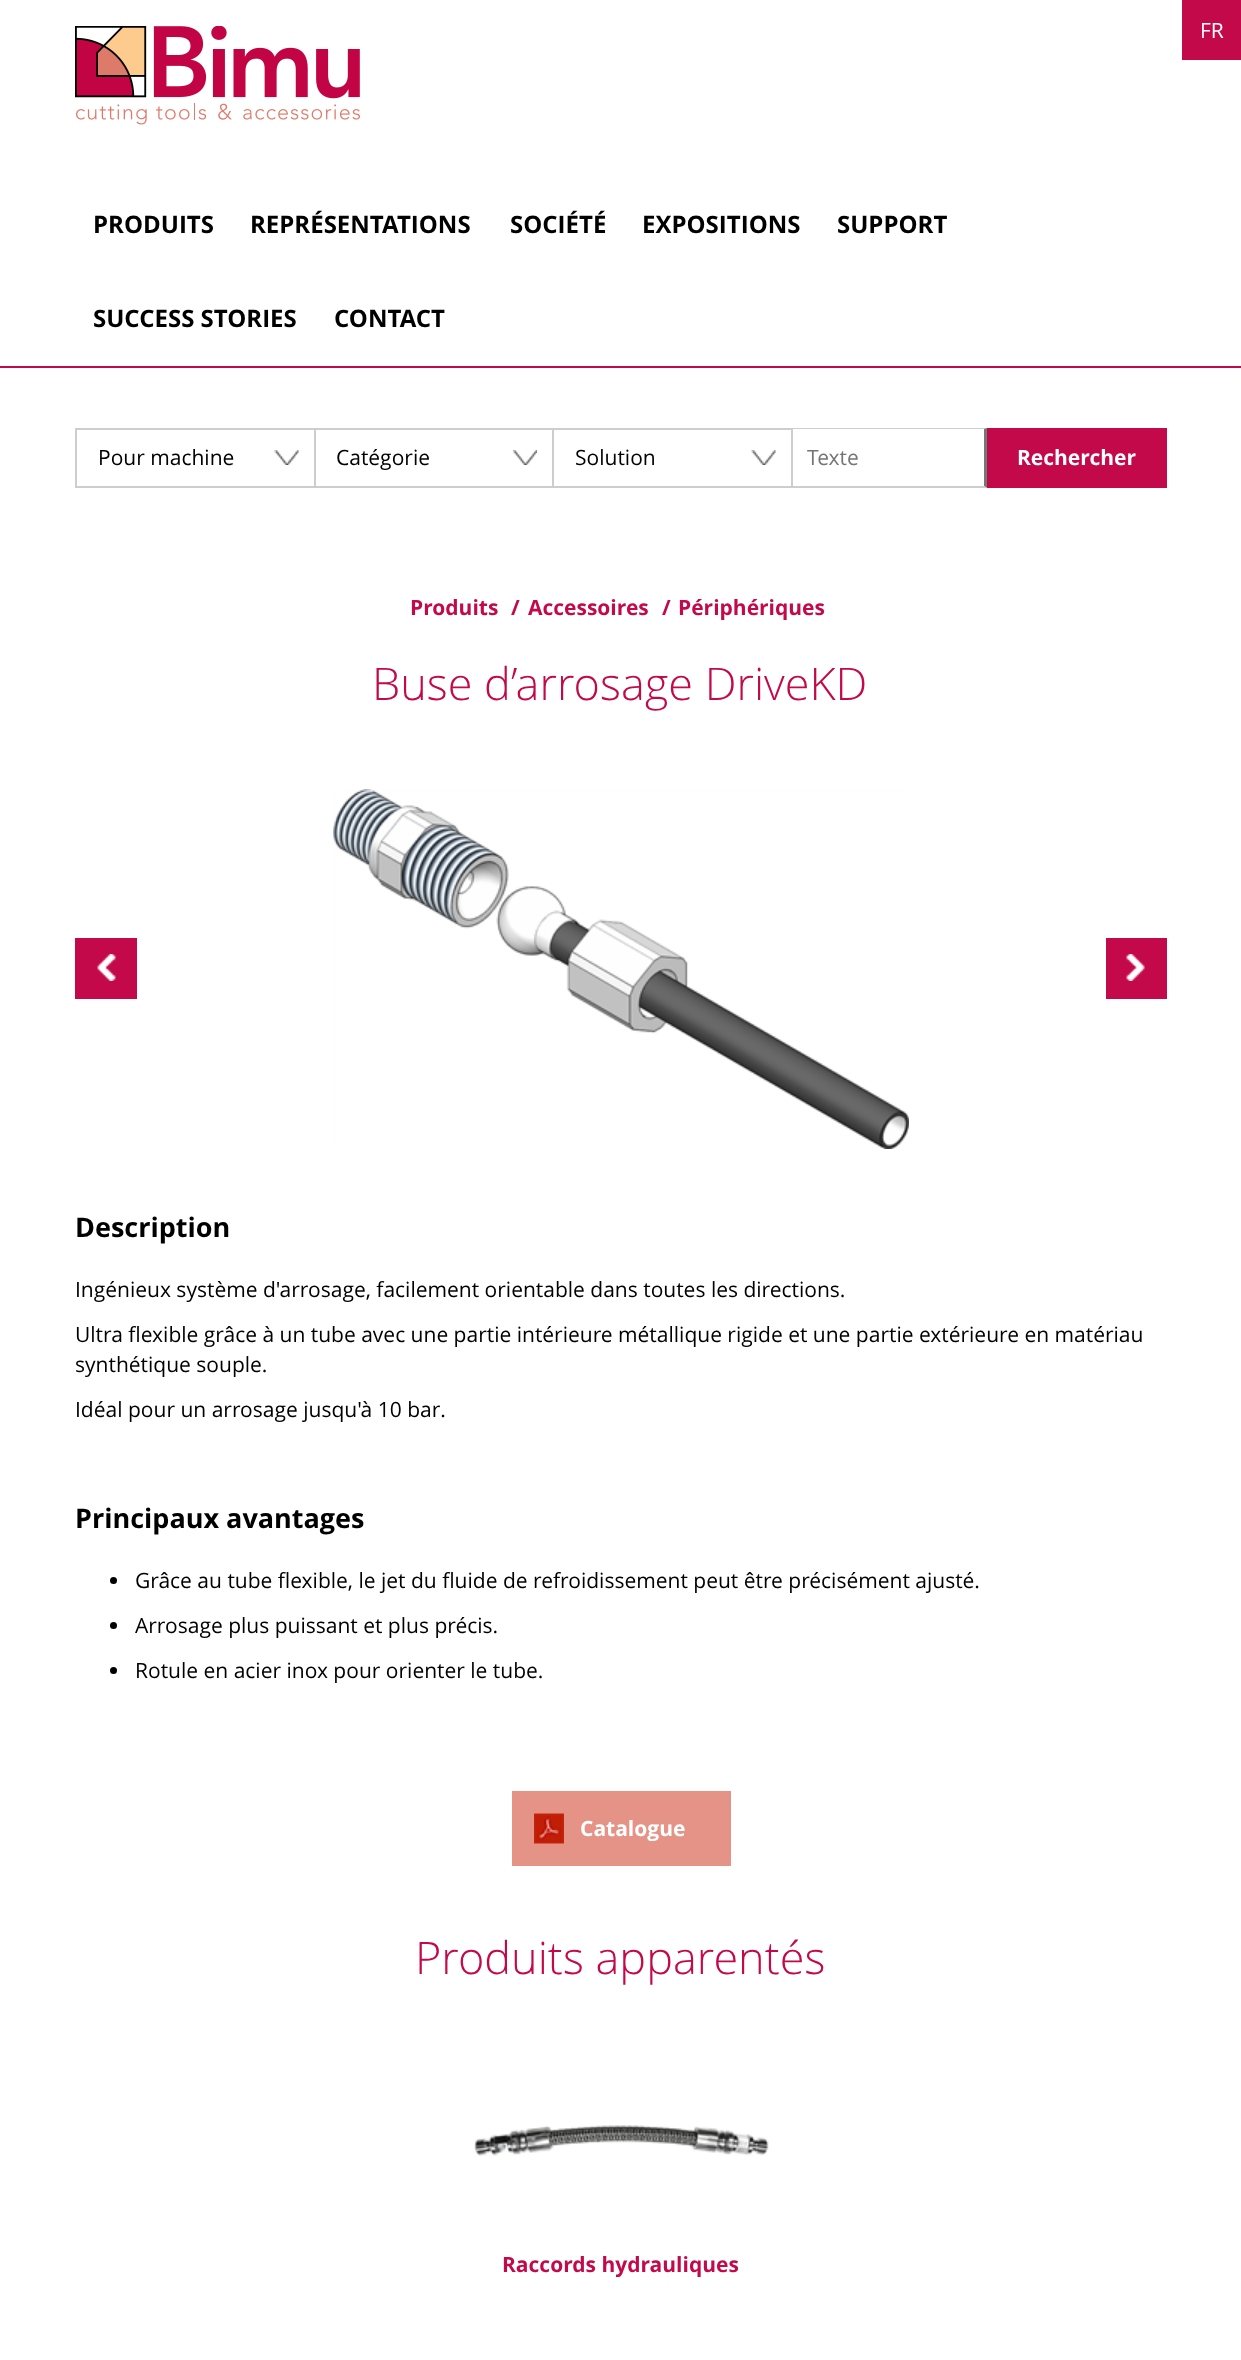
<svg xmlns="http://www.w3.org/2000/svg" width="1241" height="2360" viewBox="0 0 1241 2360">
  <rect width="100%" height="100%" fill="#ffffff"/>
  <rect x="0" y="366" width="1241" height="2" fill="#c4094a"/>
  <image x="75" y="26" width="285" height="99" href="img1.png"/>
  <rect x="1182" y="0" width="59" height="60" fill="#c4094a"/>
  <text x="1200" y="38" font-family="Open Sans" font-size="21" fill="#ffffff">FR</text>
  <text x="93" y="233" font-family="Open Sans" font-size="24" font-weight="bold" fill="#000000">PRODUITS</text>
  <text x="250" y="233" font-family="Open Sans" font-size="24" font-weight="bold" fill="#000000">REPRÉSENTATIONS</text>
  <text x="510" y="233" font-family="Open Sans" font-size="24" font-weight="bold" fill="#000000">SOCIÉTÉ</text>
  <text x="642" y="233" font-family="Open Sans" font-size="24" font-weight="bold" fill="#000000">EXPOSITIONS</text>
  <text x="837" y="233" font-family="Open Sans" font-size="24" font-weight="bold" fill="#000000">SUPPORT</text>
  <text x="93" y="327" font-family="Open Sans" font-size="24" font-weight="bold" fill="#000000">SUCCESS STORIES</text>
  <text x="334" y="327" font-family="Open Sans" font-size="24" font-weight="bold" fill="#000000">CONTACT</text>
  <path d="M790 428H987L984 429H792Z" fill="#cdcdcd"/>
  <rect x="75" y="428" width="716" height="2" fill="#cdcdcd"/>
  <path d="M987 428V488L984 486V429Z" fill="#767676"/>
  <path d="M987 488H790L792 486H984Z" fill="#cdcdcd"/>
  <rect x="75" y="486" width="716" height="2" fill="#cdcdcd"/>
  <rect x="75" y="428" width="2" height="60" fill="#cdcdcd"/>
  <text x="98" y="465" font-family="Open Sans" font-size="21" fill="#000000">Pour machine</text>
  <image x="274" y="450" width="25" height="15" href="img2.png"/>
  <rect x="314" y="428" width="2" height="60" fill="#cdcdcd"/>
  <text x="336" y="465" font-family="Open Sans" font-size="21" fill="#000000">Catégorie</text>
  <image x="513" y="450" width="24" height="15" href="img3.png"/>
  <rect x="552" y="428" width="2" height="60" fill="#cdcdcd"/>
  <text x="575" y="465" font-family="Open Sans" font-size="21" fill="#000000">Solution</text>
  <image x="751" y="450" width="25" height="15" href="img4.png"/>
  <rect x="791" y="428" width="2" height="60" fill="#cdcdcd"/>
  <text x="807" y="465" font-family="Open Sans" font-size="21" fill="#757575">Texte</text>
  <rect x="987" y="428" width="180" height="60" fill="#c4094a"/>
  <text x="1017" y="465" font-family="Open Sans" font-size="21" font-weight="bold" fill="#ffffff">Rechercher</text>
  <text x="410" y="615" font-family="Open Sans" font-size="21" font-weight="bold" fill="#c4094a">Produits</text>
  <text x="511" y="615" font-family="Open Sans" font-size="21" font-weight="bold" fill="#c4094a">/</text>
  <text x="528" y="615" font-family="Open Sans" font-size="21" font-weight="bold" fill="#c4094a">Accessoires</text>
  <text x="662" y="615" font-family="Open Sans" font-size="21" font-weight="bold" fill="#c4094a">/</text>
  <text x="678" y="615" font-family="Open Sans" font-size="21" font-weight="bold" fill="#c4094a">Périphériques</text>
  <text x="372" y="700" font-family="Open Sans" font-size="45" font-weight="300" fill="#c4094a">Buse d’arrosage DriveKD</text>
  <image x="333" y="789" width="576" height="360" href="img5.png"/>
  <rect x="75" y="938" width="62" height="61" fill="#c4094a"/>
  <image x="97" y="954" width="19" height="27" href="img6.png"/>
  <rect x="1106" y="938" width="61" height="61" fill="#c4094a"/>
  <image x="1126" y="954" width="19" height="27" href="img7.png"/>
  <text x="75" y="1237" font-family="Open Sans" font-size="27" font-weight="bold" fill="#000000">Description</text>
  <text x="75" y="1297" font-family="Open Sans" font-size="21" fill="#000000">Ingénieux système d'arrosage, facilement orientable dans toutes les directions.</text>
  <text x="75" y="1342" font-family="Open Sans" font-size="21" fill="#000000">Ultra flexible grâce à un tube avec une partie intérieure métallique rigide et une partie extérieure en matériau</text>
  <text x="75" y="1372" font-family="Open Sans" font-size="21" fill="#000000">synthétique souple.</text>
  <text x="75" y="1417" font-family="Open Sans" font-size="21" fill="#000000">Idéal pour un arrosage jusqu'à 10 bar.</text>
  <text x="75" y="1528" font-family="Open Sans" font-size="27" font-weight="bold" fill="#000000">Principaux avantages</text>
  <circle cx="113.5" cy="1580.5" r="3.5" fill="#000000"/>
  <text x="135" y="1588" font-family="Open Sans" font-size="21" fill="#000000">Grâce au tube flexible, le jet du fluide de refroidissement peut être précisément ajusté.</text>
  <circle cx="113.5" cy="1625.5" r="3.5" fill="#000000"/>
  <text x="135" y="1633" font-family="Open Sans" font-size="21" fill="#000000">Arrosage plus puissant et plus précis.</text>
  <circle cx="113.5" cy="1670.5" r="3.5" fill="#000000"/>
  <text x="135" y="1678" font-family="Open Sans" font-size="21" fill="#000000">Rotule en acier inox pour orienter le tube.</text>
  <rect x="512" y="1791" width="219" height="75" fill="#e59387"/>
  <image x="534" y="1813" width="30" height="31" href="img8.png"/>
  <text x="580" y="1836" font-family="Open Sans" font-size="21" font-weight="bold" fill="#ffffff">Catalogue</text>
  <text x="415" y="1974" font-family="Open Sans" font-size="45" font-weight="300" fill="#c4094a">Produits apparentés</text>
  <image x="474" y="2125" width="295" height="31" href="img9.png"/>
  <text x="502" y="2272" font-family="Open Sans" font-size="21" font-weight="bold" fill="#c4094a">Raccords hydrauliques</text>
</svg>
